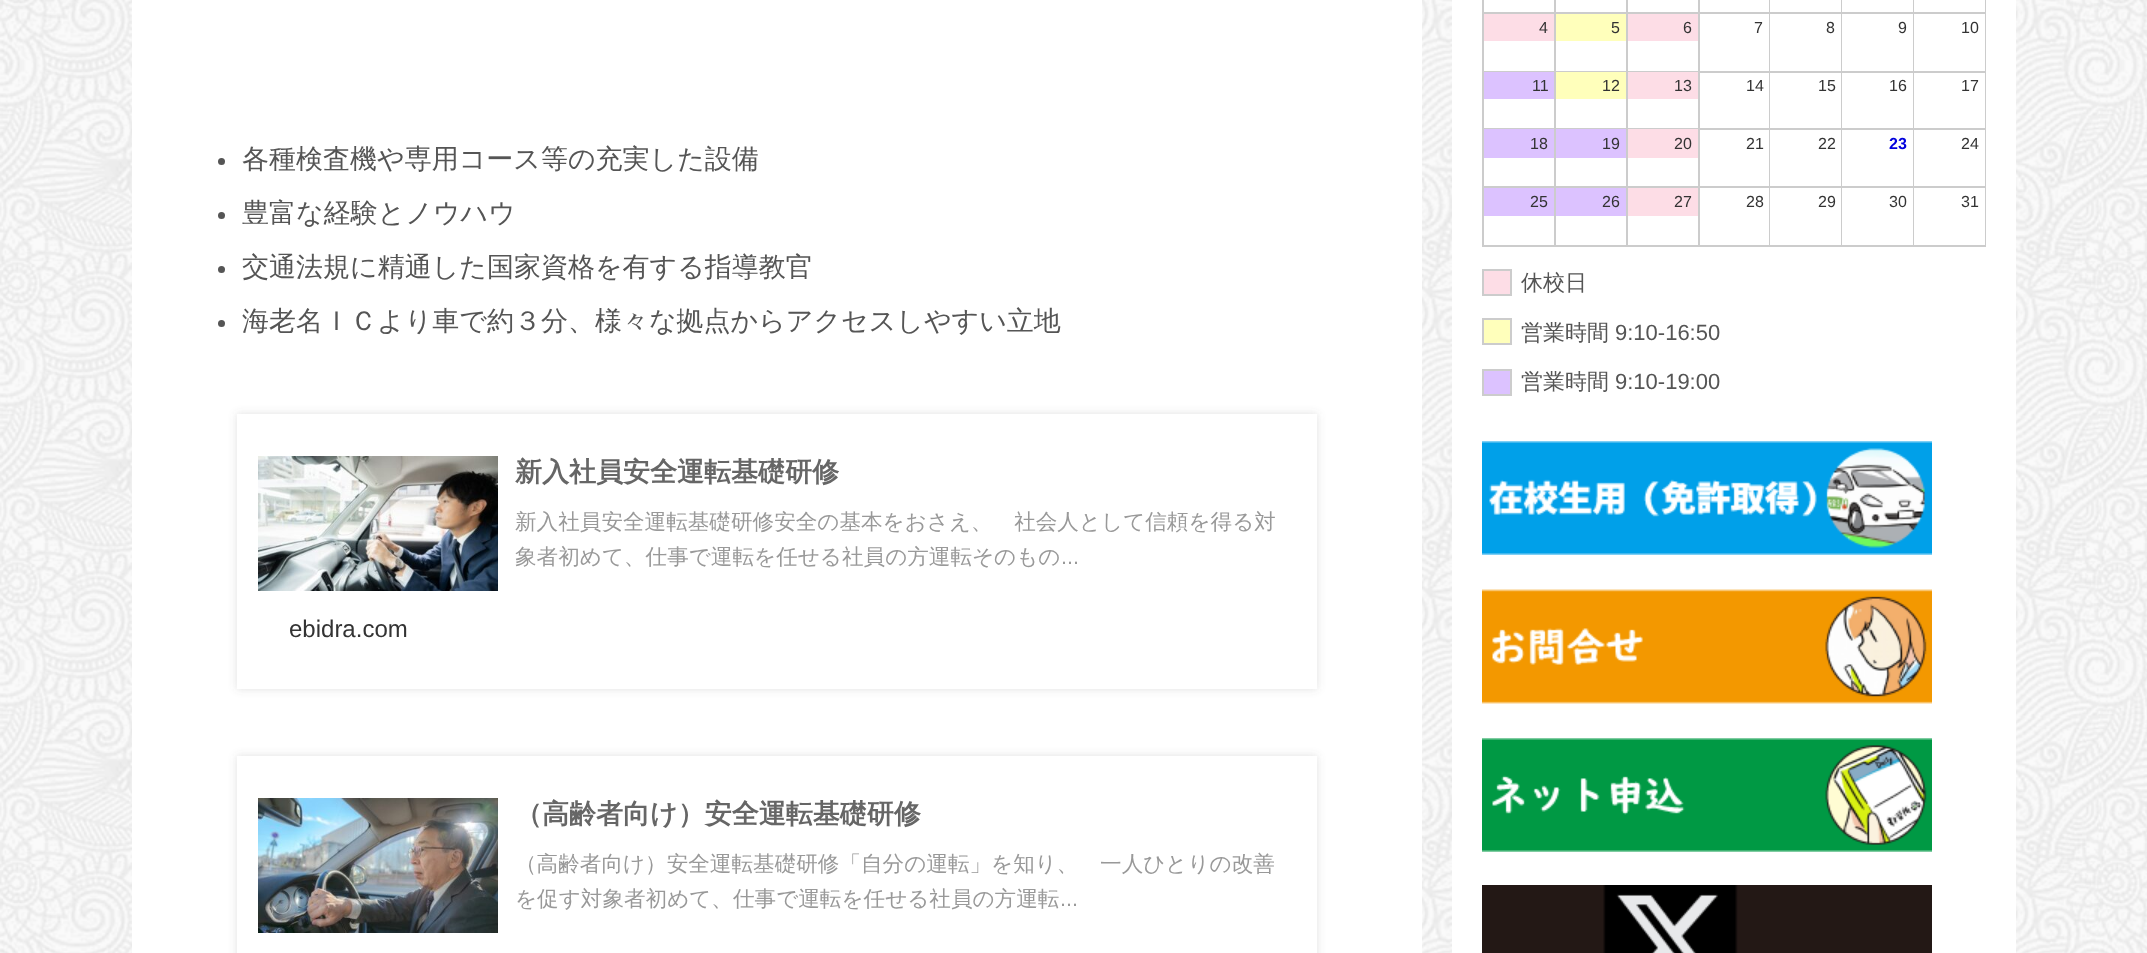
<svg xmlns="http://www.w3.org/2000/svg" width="2147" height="953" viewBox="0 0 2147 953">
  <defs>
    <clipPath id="clip1"><path d="M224 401H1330V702H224ZM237 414H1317V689H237Z" clip-rule="evenodd"/></clipPath>
    <filter id="blur1" x="-50%" y="-200%" width="200%" height="500%"><feGaussianBlur stdDeviation="4"/></filter>
    <clipPath id="clip2"><path d="M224 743H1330V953H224ZM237 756H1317V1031H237Z" clip-rule="evenodd"/></clipPath>
  </defs>
  <rect width="100%" height="100%" fill="#ffffff"/>
  <image x="0" y="0" width="2147" height="953" href="img1.png"/>
  <rect x="132" y="0" width="1290" height="953" fill="#ffffff"/>
  <circle cx="221.5" cy="161.5" r="3.5" fill="#555555"/>
  <text x="242" y="168" font-family="WenQuanYi Zen Hei" font-size="27" font-weight="500" fill="#555555">各種検査機や専用コース等の充実した設備</text>
  <circle cx="221.5" cy="215.5" r="3.5" fill="#555555"/>
  <text x="242" y="222" font-family="WenQuanYi Zen Hei" font-size="27" font-weight="500" fill="#555555">豊富な経験とノウハウ</text>
  <circle cx="221.5" cy="269.5" r="3.5" fill="#555555"/>
  <text x="242" y="276" font-family="WenQuanYi Zen Hei" font-size="27" font-weight="500" fill="#555555">交通法規に精通した国家資格を有する指導教官</text>
  <circle cx="221.5" cy="323.5" r="3.5" fill="#555555"/>
  <text x="242" y="330" font-family="WenQuanYi Zen Hei" font-size="27" font-weight="500" fill="#555555">海老名ＩＣより車で約３分、様々な拠点からアクセスしやすい立地</text>
  <g clip-path="url(#clip1)">
    <rect x="237" y="414" width="1080" height="275" fill="#646464" fill-opacity="0.2" filter="url(#blur1)"/>
  </g>
  <image x="258" y="456" width="240" height="135" href="img2.png"/>
  <text x="515" y="481" font-family="WenQuanYi Zen Hei" font-size="27" font-weight="bold" fill="#666666">新入社員安全運転基礎研修</text>
  <text x="515" y="529" font-family="WenQuanYi Zen Hei" font-size="21.6" font-weight="500" fill="#999999">新入社員安全運転基礎研修安全の基本をおさえ、　社会人として信頼を得る対</text>
  <text x="515" y="564" font-family="WenQuanYi Zen Hei" font-size="21.6" font-weight="500" fill="#999999">象者初めて、仕事で運転を任せる社員の方運転そのもの</text>
  <text x="1061" y="564" font-family="Liberation Sans" font-size="21.6" fill="#999999">...</text>
  <text x="289" y="637" font-family="Liberation Sans" font-size="24" fill="#333333">ebidra.com</text>
  <g clip-path="url(#clip2)">
    <rect x="237" y="756" width="1080" height="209" fill="#646464" fill-opacity="0.2" filter="url(#blur1)"/>
  </g>
  <image x="258" y="798" width="240" height="135" href="img3.png"/>
  <text x="515" y="823" font-family="WenQuanYi Zen Hei" font-size="27" font-weight="bold" fill="#666666">（高齢者向け）安全運転基礎研修</text>
  <text x="515" y="871" font-family="WenQuanYi Zen Hei" font-size="21.6" font-weight="500" fill="#999999">（高齢者向け）安全運転基礎研修「自分の運転」を知り、　一人ひとりの改善</text>
  <text x="515" y="906" font-family="WenQuanYi Zen Hei" font-size="21.6" font-weight="500" fill="#999999">を促す対象者初めて、仕事で運転を任せる社員の方運転</text>
  <text x="1060" y="906" font-family="Liberation Sans" font-size="21.6" fill="#999999">...</text>
  <rect x="1452" y="0" width="564" height="953" fill="#ffffff"/>
  <rect x="1482" y="245" width="504" height="2" fill="#cccccc"/>
  <rect x="1482" y="0" width="2" height="246" fill="#cccccc"/>
  <rect x="1554" y="0" width="2" height="12" fill="#cccccc"/>
  <rect x="1626" y="0" width="2" height="12" fill="#cccccc"/>
  <rect x="1698" y="0" width="2" height="12" fill="#cccccc"/>
  <rect x="1985" y="0" width="1" height="12" fill="#cccccc"/>
  <rect x="1769" y="0" width="1" height="12" fill="#cccccc"/>
  <rect x="1841" y="0" width="1" height="12" fill="#cccccc"/>
  <rect x="1913" y="0" width="1" height="12" fill="#cccccc"/>
  <rect x="1484" y="12" width="502" height="2" fill="#cccccc"/>
  <rect x="1554" y="12" width="2" height="59" fill="#cccccc"/>
  <rect x="1484" y="14" width="70" height="27" fill="#fddde6"/>
  <text x="1539" y="33" font-family="Liberation Sans" font-size="16" fill="#333333">4</text>
  <rect x="1626" y="12" width="2" height="59" fill="#cccccc"/>
  <rect x="1556" y="14" width="70" height="27" fill="#ffffbb"/>
  <text x="1611" y="33" font-family="Liberation Sans" font-size="16" fill="#333333">5</text>
  <rect x="1698" y="12" width="2" height="59" fill="#cccccc"/>
  <rect x="1628" y="14" width="70" height="27" fill="#fddde6"/>
  <text x="1683" y="33" font-family="Liberation Sans" font-size="16" fill="#333333">6</text>
  <rect x="1769" y="12" width="1" height="59" fill="#cccccc"/>
  <text x="1754" y="33" font-family="Liberation Sans" font-size="16" fill="#333333">7</text>
  <rect x="1841" y="12" width="1" height="59" fill="#cccccc"/>
  <text x="1826" y="33" font-family="Liberation Sans" font-size="16" fill="#333333">8</text>
  <rect x="1913" y="12" width="1" height="59" fill="#cccccc"/>
  <text x="1898" y="33" font-family="Liberation Sans" font-size="16" fill="#333333">9</text>
  <rect x="1985" y="12" width="1" height="59" fill="#cccccc"/>
  <text x="1961" y="33" font-family="Liberation Sans" font-size="16" fill="#333333">10</text>
  <rect x="1484" y="71" width="216" height="1" fill="#cccccc"/>
  <rect x="1554" y="71" width="2" height="57" fill="#cccccc"/>
  <rect x="1484" y="72" width="70" height="27" fill="#dcc2ff"/>
  <text x="1532" y="91" font-family="Liberation Sans" font-size="16" fill="#333333">11</text>
  <rect x="1626" y="71" width="2" height="57" fill="#cccccc"/>
  <rect x="1556" y="72" width="70" height="27" fill="#ffffbb"/>
  <text x="1602" y="91" font-family="Liberation Sans" font-size="16" fill="#333333">12</text>
  <rect x="1698" y="71" width="2" height="57" fill="#cccccc"/>
  <rect x="1628" y="72" width="70" height="27" fill="#fddde6"/>
  <text x="1674" y="91" font-family="Liberation Sans" font-size="16" fill="#333333">13</text>
  <rect x="1700" y="71" width="286" height="2" fill="#cccccc"/>
  <rect x="1769" y="71" width="1" height="57" fill="#cccccc"/>
  <text x="1746" y="91" font-family="Liberation Sans" font-size="16" fill="#333333">14</text>
  <rect x="1841" y="71" width="1" height="57" fill="#cccccc"/>
  <text x="1818" y="91" font-family="Liberation Sans" font-size="16" fill="#333333">15</text>
  <rect x="1913" y="71" width="1" height="57" fill="#cccccc"/>
  <text x="1889" y="91" font-family="Liberation Sans" font-size="16" fill="#333333">16</text>
  <rect x="1985" y="71" width="1" height="57" fill="#cccccc"/>
  <text x="1961" y="91" font-family="Liberation Sans" font-size="16" fill="#333333">17</text>
  <rect x="1484" y="128" width="216" height="1" fill="#cccccc"/>
  <rect x="1554" y="128" width="2" height="58" fill="#cccccc"/>
  <rect x="1484" y="129" width="70" height="29" fill="#dcc2ff"/>
  <text x="1530" y="149" font-family="Liberation Sans" font-size="16" fill="#333333">18</text>
  <rect x="1626" y="128" width="2" height="58" fill="#cccccc"/>
  <rect x="1556" y="129" width="70" height="29" fill="#dcc2ff"/>
  <text x="1602" y="149" font-family="Liberation Sans" font-size="16" fill="#333333">19</text>
  <rect x="1698" y="128" width="2" height="58" fill="#cccccc"/>
  <rect x="1628" y="129" width="70" height="29" fill="#fddde6"/>
  <text x="1674" y="149" font-family="Liberation Sans" font-size="16" fill="#333333">20</text>
  <rect x="1700" y="128" width="286" height="2" fill="#cccccc"/>
  <rect x="1769" y="128" width="1" height="58" fill="#cccccc"/>
  <text x="1746" y="149" font-family="Liberation Sans" font-size="16" fill="#333333">21</text>
  <rect x="1841" y="128" width="1" height="58" fill="#cccccc"/>
  <text x="1818" y="149" font-family="Liberation Sans" font-size="16" fill="#333333">22</text>
  <rect x="1913" y="128" width="1" height="58" fill="#cccccc"/>
  <text x="1889" y="149" font-family="Liberation Sans" font-size="16" font-weight="bold" fill="#0000dd">23</text>
  <rect x="1985" y="128" width="1" height="58" fill="#cccccc"/>
  <text x="1961" y="149" font-family="Liberation Sans" font-size="16" fill="#333333">24</text>
  <rect x="1484" y="186" width="502" height="2" fill="#cccccc"/>
  <rect x="1554" y="186" width="2" height="59" fill="#cccccc"/>
  <rect x="1484" y="188" width="70" height="28" fill="#dcc2ff"/>
  <text x="1530" y="207" font-family="Liberation Sans" font-size="16" fill="#333333">25</text>
  <rect x="1626" y="186" width="2" height="59" fill="#cccccc"/>
  <rect x="1556" y="188" width="70" height="28" fill="#dcc2ff"/>
  <text x="1602" y="207" font-family="Liberation Sans" font-size="16" fill="#333333">26</text>
  <rect x="1698" y="186" width="2" height="59" fill="#cccccc"/>
  <rect x="1628" y="188" width="70" height="28" fill="#fddde6"/>
  <text x="1674" y="207" font-family="Liberation Sans" font-size="16" fill="#333333">27</text>
  <rect x="1769" y="186" width="1" height="59" fill="#cccccc"/>
  <text x="1746" y="207" font-family="Liberation Sans" font-size="16" fill="#333333">28</text>
  <rect x="1841" y="186" width="1" height="59" fill="#cccccc"/>
  <text x="1818" y="207" font-family="Liberation Sans" font-size="16" fill="#333333">29</text>
  <rect x="1913" y="186" width="1" height="59" fill="#cccccc"/>
  <text x="1889" y="207" font-family="Liberation Sans" font-size="16" fill="#333333">30</text>
  <rect x="1985" y="186" width="1" height="59" fill="#cccccc"/>
  <text x="1961" y="207" font-family="Liberation Sans" font-size="16" fill="#333333">31</text>
  <rect x="1483" y="270" width="28" height="25" fill="#fddde6" stroke="#cccccc" stroke-width="2"/>
  <text x="1521" y="290" font-family="WenQuanYi Zen Hei" font-size="22" font-weight="500" fill="#555555">休校日</text>
  <rect x="1483" y="319" width="28" height="25" fill="#ffffbb" stroke="#cccccc" stroke-width="2"/>
  <text x="1521" y="340" font-family="WenQuanYi Zen Hei" font-size="22" font-weight="500" fill="#555555">営業時間</text>
  <text x="1615" y="340" font-family="Liberation Sans" font-size="22" fill="#555555">9:10-16:50</text>
  <rect x="1483" y="370" width="28" height="25" fill="#dcc2ff" stroke="#cccccc" stroke-width="2"/>
  <text x="1521" y="389" font-family="WenQuanYi Zen Hei" font-size="22" font-weight="500" fill="#555555">営業時間</text>
  <text x="1615" y="389" font-family="Liberation Sans" font-size="22" fill="#555555">9:10-19:00</text>
  <image x="1482" y="441" width="450" height="114" href="img4.png"/>
  <image x="1482" y="589" width="450" height="115" href="img5.png"/>
  <image x="1482" y="738" width="450" height="114" href="img6.png"/>
  <image x="1482" y="885" width="450" height="68" href="img7.png"/>
</svg>
